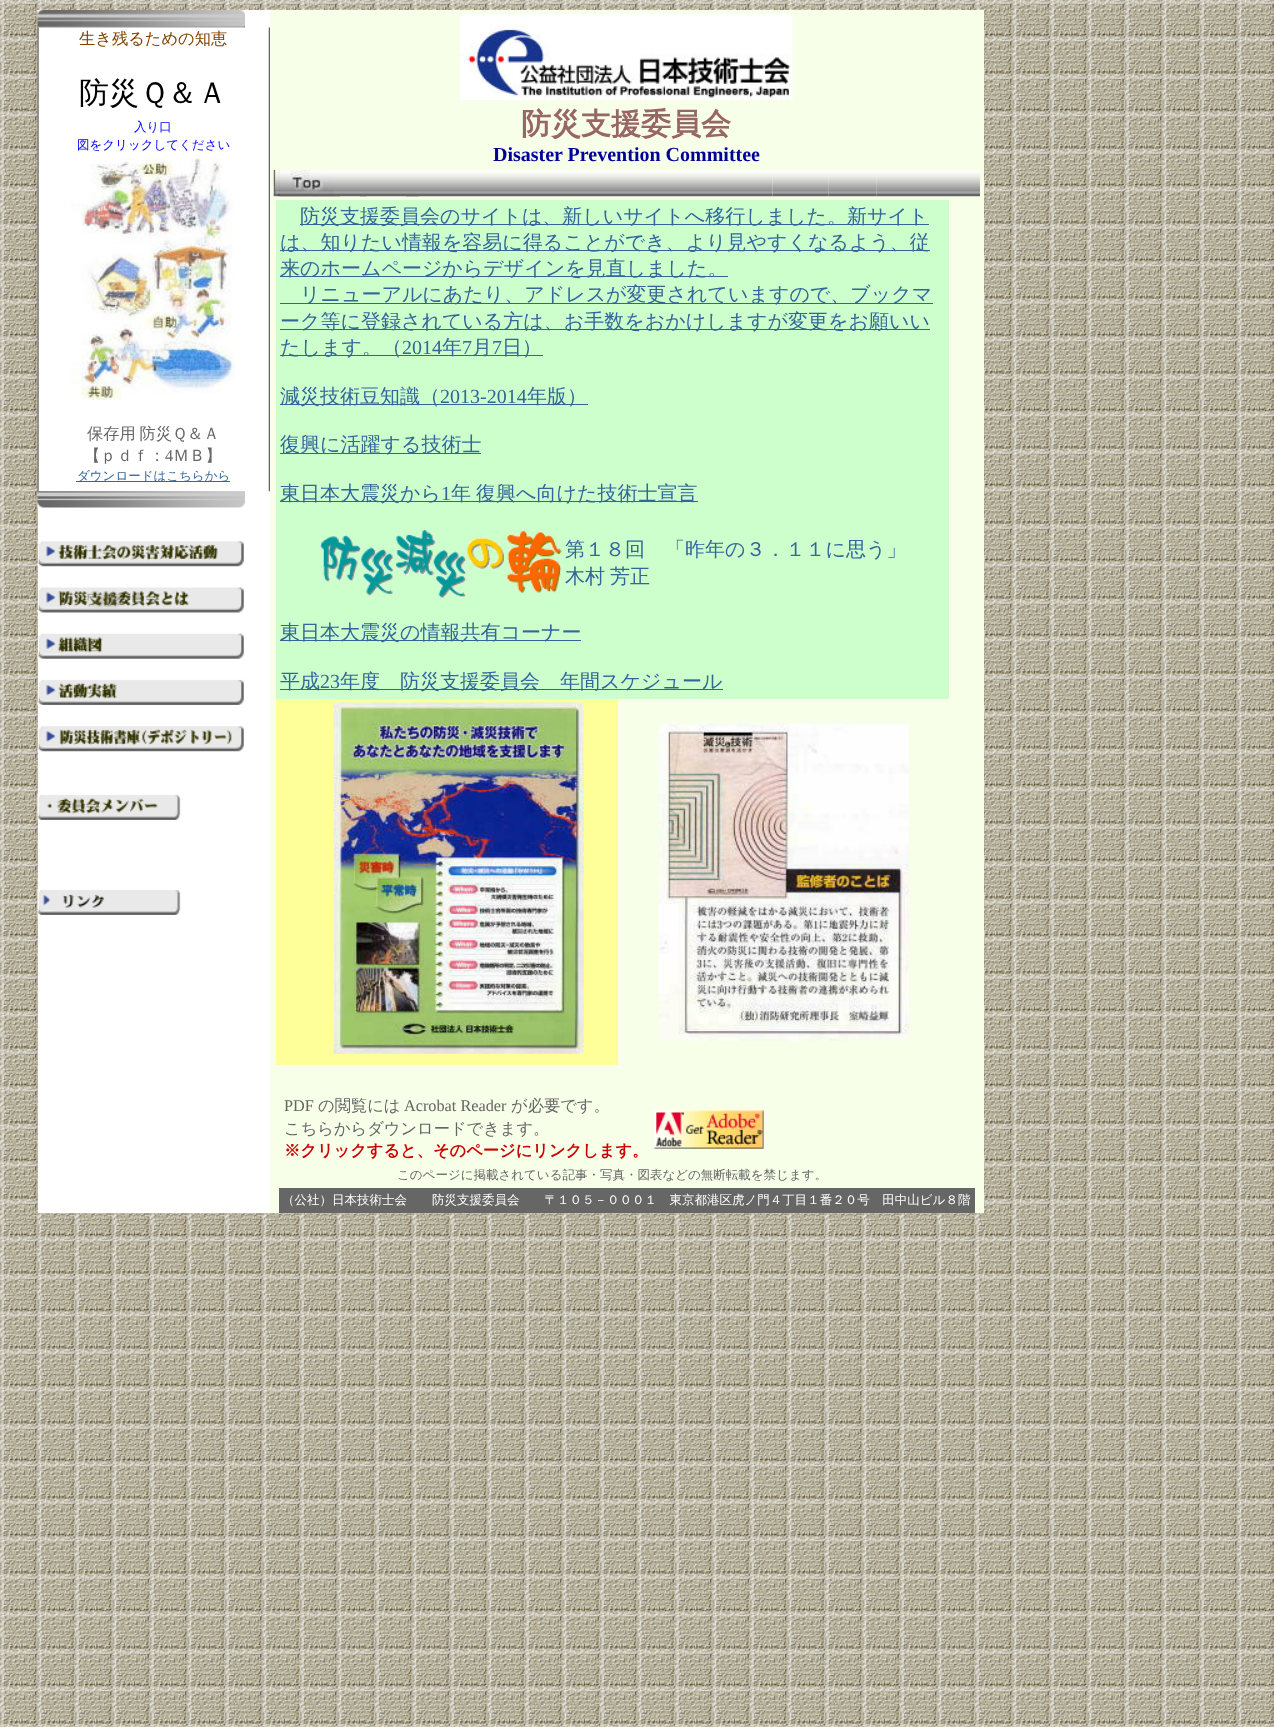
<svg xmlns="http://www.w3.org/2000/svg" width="1274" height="1727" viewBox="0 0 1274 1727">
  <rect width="100%" height="100%" fill="#ffffff"/>
  <image x="0" y="0" width="1274" height="1727" href="img1.png"/>
  <rect x="38" y="10" width="232" height="1203" fill="#ffffff"/>
  <image x="37" y="27" width="2" height="465" href="img3.png"/>
  <image x="37" y="10" width="208" height="18" href="img2.png"/>
  <text x="79" y="44" font-family="WenQuanYi Zen Hei" font-size="16.25" font-weight="500" fill="#804000">生き残るための知恵</text>
  <text x="79" y="103" font-family="WenQuanYi Zen Hei" font-size="30" font-weight="500" fill="#000000">防災</text>
  <text x="140" y="103" font-family="WenQuanYi Zen Hei" font-size="30" font-weight="500" fill="#000000">Ｑ＆Ａ</text>
  <text x="134" y="131" font-family="WenQuanYi Zen Hei" font-size="12.5" font-weight="500" fill="#0000ff">入り口</text>
  <text x="77" y="149" font-family="WenQuanYi Zen Hei" font-size="12.5" font-weight="500" fill="#0000ff">図をクリックしてください</text>
  <image x="71" y="154" width="164" height="246" href="img4.png"/>
  <text x="87" y="439" word-spacing="-1" font-family="WenQuanYi Zen Hei" font-size="16.25" font-weight="500" fill="#666666">保存用 防災Ｑ＆Ａ</text>
  <text x="84" y="461" font-family="WenQuanYi Zen Hei" font-size="16.25" font-weight="500" fill="#666666">【ｐｄｆ：</text>
  <text x="165" y="461" font-family="Liberation Serif" font-size="16.25" fill="#666666">4</text>
  <text x="173" y="461" font-family="WenQuanYi Zen Hei" font-size="16.25" font-weight="500" fill="#666666">ＭＢ】</text>
  <rect x="76" y="481" width="154" height="1" fill="#336699"/>
  <text x="77" y="480" font-family="WenQuanYi Zen Hei" font-size="12.5" font-weight="500" fill="#336699">ダウンロードはこちらから</text>
  <image x="263" y="27" width="7" height="465" href="img5.png"/>
  <image x="37" y="491" width="208" height="17" href="img6.png"/>
  <image x="37" y="541" width="207" height="26" href="img7.png"/>
  <image x="37" y="587" width="207" height="26" href="img8.png"/>
  <image x="37" y="633" width="207" height="26" href="img9.png"/>
  <image x="37" y="679" width="207" height="26" href="img10.png"/>
  <image x="37" y="726" width="207" height="26" href="img11.png"/>
  <image x="37" y="793" width="144" height="27" href="img12.png"/>
  <image x="37" y="888" width="144" height="27" href="img13.png"/>
  <rect x="270" y="10" width="714" height="1203" fill="#f7ffe8"/>
  <image x="460" y="13" width="333" height="87" href="img14.png"/>
  <text x="521" y="134" font-family="WenQuanYi Zen Hei" font-size="30" font-weight="bold" fill="#996666">防災支援委員会</text>
  <text x="493" y="161" font-family="Liberation Serif" font-size="20" font-weight="bold" fill="#000099">Disaster Prevention Committee</text>
  <image x="273" y="170" width="7" height="27" href="img15.png"/>
  <image x="280" y="170" width="493" height="27" href="img16.png"/>
  <image x="280" y="170" width="54" height="27" href="img17.png"/>
  <image x="333" y="196" width="7" height="1" href="img18.png"/>
  <image x="360" y="196" width="7" height="1" href="img19.png"/>
  <image x="406" y="196" width="7" height="1" href="img20.png"/>
  <image x="412" y="196" width="7" height="1" href="img21.png"/>
  <image x="772" y="170" width="57" height="27" href="img22.png"/>
  <image x="828" y="170" width="49" height="27" href="img23.png"/>
  <image x="876" y="170" width="104" height="27" href="img24.png"/>
  <rect x="276" y="200" width="673" height="499" fill="#ccffcc"/>
  <rect x="300" y="224" width="629" height="1" fill="#336699"/>
  <text x="300" y="223" font-family="WenQuanYi Zen Hei" font-size="20" font-weight="500" fill="#336699">防災支援委員会のサイトは、新しいサイトへ移行しました。新サイト</text>
  <rect x="280" y="250" width="650" height="1" fill="#336699"/>
  <text x="280" y="249" font-family="WenQuanYi Zen Hei" font-size="20" font-weight="500" fill="#336699">は、知りたい情報を容易に得ることができ、より見やすくなるよう、従</text>
  <rect x="280" y="276" width="448" height="1" fill="#336699"/>
  <text x="280" y="275" font-family="WenQuanYi Zen Hei" font-size="20" font-weight="500" fill="#336699">来のホームページからデザインを見直しました。</text>
  <rect x="280" y="303" width="653" height="1" fill="#336699"/>
  <text x="300" y="301" font-family="WenQuanYi Zen Hei" font-size="20" font-weight="500" fill="#336699">リニューアルにあたり、アドレスが変更されていますので、ブックマ</text>
  <rect x="280" y="329" width="650" height="1" fill="#336699"/>
  <text x="280" y="328" font-family="WenQuanYi Zen Hei" font-size="20" font-weight="500" fill="#336699">ーク等に登録されている方は、お手数をおかけしますが変更をお願いい</text>
  <rect x="280" y="355" width="263" height="1" fill="#336699"/>
  <text x="280" y="354" font-family="WenQuanYi Zen Hei" font-size="20" font-weight="500" fill="#336699">たします。（</text>
  <text x="402" y="354" font-family="Liberation Serif" font-size="20" fill="#336699">2014</text>
  <text x="442" y="354" font-family="WenQuanYi Zen Hei" font-size="20" font-weight="500" fill="#336699">年</text>
  <text x="462" y="354" font-family="Liberation Serif" font-size="20" fill="#336699">7</text>
  <text x="472" y="354" font-family="WenQuanYi Zen Hei" font-size="20" font-weight="500" fill="#336699">月</text>
  <text x="492" y="354" font-family="Liberation Serif" font-size="20" fill="#336699">7</text>
  <text x="502" y="354" font-family="WenQuanYi Zen Hei" font-size="20" font-weight="500" fill="#336699">日）</text>
  <rect x="280" y="404" width="308" height="1" fill="#336699"/>
  <text x="280" y="403" font-family="WenQuanYi Zen Hei" font-size="20" font-weight="500" fill="#336699">減災技術豆知識（</text>
  <text x="440" y="403" font-family="Liberation Serif" font-size="20" fill="#336699">2013-2014</text>
  <text x="527" y="403" font-family="WenQuanYi Zen Hei" font-size="20" font-weight="500" fill="#336699">年版）</text>
  <rect x="280" y="453" width="201" height="1" fill="#336699"/>
  <text x="280" y="451" font-family="WenQuanYi Zen Hei" font-size="20" font-weight="500" fill="#336699">復興に活躍する技術士</text>
  <rect x="280" y="501" width="418" height="1" fill="#336699"/>
  <text x="280" y="500" font-family="WenQuanYi Zen Hei" font-size="20" font-weight="500" fill="#336699">東日本大震災から</text>
  <text x="441" y="500" font-family="Liberation Serif" font-size="20" fill="#336699">1</text>
  <text x="451" y="500" word-spacing="-1" font-family="WenQuanYi Zen Hei" font-size="20" font-weight="500" fill="#336699">年 復興へ向けた技術士宣言</text>
  <image x="320" y="530" width="242" height="68" href="img25.png"/>
  <text x="565" y="556" font-family="WenQuanYi Zen Hei" font-size="20" font-weight="500" fill="#336699">第１８回　「昨年の３．１１に思う」</text>
  <text x="565" y="583" word-spacing="-1" font-family="WenQuanYi Zen Hei" font-size="20" font-weight="500" fill="#336699">木村 芳正</text>
  <rect x="280" y="640" width="301" height="1" fill="#336699"/>
  <text x="280" y="639" font-family="WenQuanYi Zen Hei" font-size="20" font-weight="500" fill="#336699">東日本大震災の情報共有コーナー</text>
  <rect x="280" y="689" width="443" height="1" fill="#336699"/>
  <text x="280" y="688" font-family="WenQuanYi Zen Hei" font-size="20" font-weight="500" fill="#336699">平成</text>
  <text x="320" y="688" font-family="Liberation Serif" font-size="20" fill="#336699">23</text>
  <text x="340" y="688" font-family="WenQuanYi Zen Hei" font-size="20" font-weight="500" fill="#336699">年度　防災支援委員会　年間スケジュール</text>
  <rect x="276" y="699" width="342" height="366" fill="#ffff99"/>
  <image x="333" y="702" width="251" height="352" href="img26.png"/>
  <image x="658" y="723" width="251" height="318" href="img27.png"/>
  <text x="284" y="1111" font-family="Liberation Serif" font-size="16.25" fill="#666666">PDF</text>
  <text x="318" y="1111" font-family="WenQuanYi Zen Hei" font-size="16.25" font-weight="500" fill="#666666">の閲覧には</text>
  <text x="404" y="1111" font-family="Liberation Serif" font-size="16.25" fill="#666666">Acrobat Reader</text>
  <text x="511" y="1111" font-family="WenQuanYi Zen Hei" font-size="16.25" font-weight="500" fill="#666666">が必要です。</text>
  <text x="284" y="1134" font-family="WenQuanYi Zen Hei" font-size="16.25" font-weight="500" fill="#666666">こちらからダウンロードできます。</text>
  <text x="284" y="1156" font-family="WenQuanYi Zen Hei" font-size="16.25" font-weight="bold" fill="#cc0000">※クリックすると、そのページにリンクします。</text>
  <image x="653" y="1110" width="111" height="39" href="img28.png"/>
  <text x="397" y="1179" font-family="WenQuanYi Zen Hei" font-size="12.5" font-weight="500" fill="#666666">このページに掲載されている記事・写真・図表などの無断転載を禁じます。</text>
  <rect x="279" y="1188" width="696" height="25" fill="#666666"/>
  <text x="282" y="1204" font-family="WenQuanYi Zen Hei" font-size="12.5" font-weight="500" fill="#ffffff">（公社）日本技術士会　　防災支援委員会　　〒１０５－０００１　東京都港区虎ノ門４丁目１番２０号　田中山ビル８階</text>
</svg>
